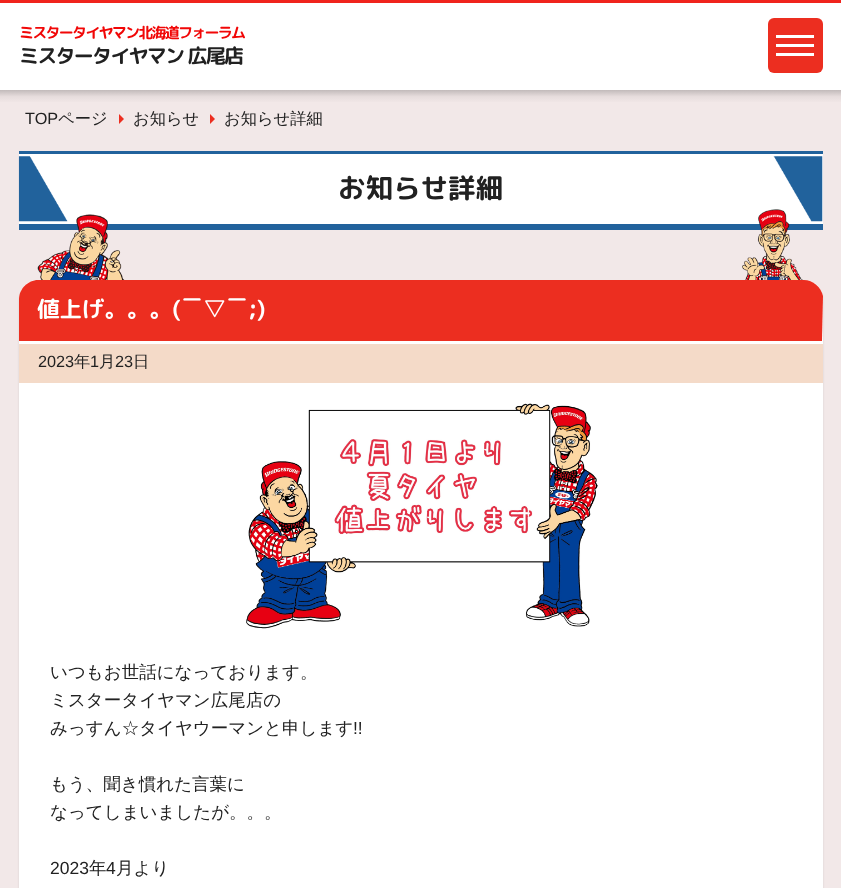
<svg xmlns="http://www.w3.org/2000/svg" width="841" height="888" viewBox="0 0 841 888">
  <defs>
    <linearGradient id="g1" gradientUnits="userSpaceOnUse" x1="421" y1="90" x2="421" y2="103"><stop offset="0" stop-color="#c2baba"/><stop offset="0.5" stop-color="#e6dcdc"/><stop offset="1" stop-color="#f2e8e8"/></linearGradient>
    <filter id="blur1" x="-50%" y="-200%" width="200%" height="500%"><feGaussianBlur stdDeviation="1"/></filter>
  </defs>
  <rect width="100%" height="100%" fill="#f2e8e8"/>
  <rect x="0" y="3" width="841" height="87" fill="#ffffff"/>
  <rect x="0" y="0" width="841" height="3" fill="#f0231c"/>
  <text x="19" y="38" font-family="'Rounded Mplus 1c Bold'" font-size="15" font-weight="bold" letter-spacing="-1.75" fill="#f10707">ミスタータイヤマン北海道フォーラム</text>
  <text x="19" y="63" font-family="'Rounded Mplus 1c Bold'" font-size="20" font-weight="bold" letter-spacing="-1.75" fill="#212121">ミスタータイヤマン 広尾店</text>
  <rect x="768" y="18" width="55" height="55" rx="6" fill="#ec2e20"/>
  <rect x="776" y="44" width="38" height="3" fill="#ffffff"/>
  <rect x="776" y="35" width="38" height="3" fill="#ffffff"/>
  <rect x="776" y="53" width="38" height="3" fill="#ffffff"/>
  <rect x="0" y="90" width="841" height="12" fill="url(#g1)"/>
  <text x="25" y="124" font-family="Liberation Sans" font-size="16.25" fill="#212121">TOP</text>
  <text x="58" y="124" font-family="WenQuanYi Zen Hei" font-size="16.25" font-weight="500" fill="#212121">ページ</text>
  <path d="M119 124V114L124 119Z" fill="#ec2e20"/>
  <text x="133" y="124" font-family="WenQuanYi Zen Hei" font-size="16.25" font-weight="500" fill="#212121">お知らせ</text>
  <path d="M210 124V114L215 119Z" fill="#ec2e20"/>
  <text x="224" y="124" font-family="WenQuanYi Zen Hei" font-size="16.25" font-weight="500" fill="#212121">お知らせ詳細</text>
  <rect x="19" y="154" width="804" height="70" fill="#ffffff"/>
  <image x="18" y="156" width="805" height="66" href="img1.png"/>
  <rect x="19" y="151" width="804" height="3" fill="#21629c"/>
  <rect x="19" y="224" width="804" height="6" fill="#21629c"/>
  <text x="338" y="198" font-family="'Rounded Mplus 1c Bold'" font-size="27.5" font-weight="bold" fill="#212121">お知らせ詳細</text>
  <rect x="19" y="283" width="804" height="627" rx="19" fill="#000000" fill-opacity="0.1" filter="url(#blur1)"/>
  <image x="37" y="214" width="88" height="66" href="img2.png"/>
  <image x="742" y="209" width="61" height="71" href="img3.png"/>
  <rect x="19" y="280" width="804" height="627" rx="19" fill="#ffffff"/>
  <path d="M38 280C28 280 19 289 19 299V341H822L823 296C821 287 813 280 804 280Z" fill="#ec2e20"/>
  <text x="37" y="317" font-family="'Rounded Mplus 1c Bold'" font-size="22.5" font-weight="bold" fill="#ffffff">値上げ。。。(￣▽￣;)</text>
  <rect x="19" y="344" width="804" height="39" fill="#f4dac8"/>
  <text x="38" y="367" font-family="Liberation Sans" font-size="16.25" fill="#212121">2023</text>
  <text x="74" y="367" font-family="WenQuanYi Zen Hei" font-size="16.25" font-weight="500" fill="#212121">年</text>
  <text x="90" y="367" font-family="Liberation Sans" font-size="16.25" fill="#212121">1</text>
  <text x="99" y="367" font-family="WenQuanYi Zen Hei" font-size="16.25" font-weight="500" fill="#212121">月</text>
  <text x="115" y="367" font-family="Liberation Sans" font-size="16.25" fill="#212121">23</text>
  <text x="133" y="367" font-family="WenQuanYi Zen Hei" font-size="16.25" font-weight="500" fill="#212121">日</text>
  <image x="246" y="403" width="352" height="226" href="img4.png"/>
  <text x="50" y="678" font-family="WenQuanYi Zen Hei" font-size="17.5" font-weight="500" fill="#212121">いつもお世話になっております。</text>
  <text x="50" y="706" font-family="WenQuanYi Zen Hei" font-size="17.5" font-weight="500" fill="#212121">ミスタータイヤマン広尾店の</text>
  <text x="50" y="734" font-family="WenQuanYi Zen Hei" font-size="17.5" font-weight="500" fill="#212121">みっすん☆タイヤウーマンと申します</text>
  <text x="353" y="734" font-family="Liberation Sans" font-size="17.5" fill="#212121">!!</text>
  <text x="50" y="790" font-family="WenQuanYi Zen Hei" font-size="17.5" font-weight="500" fill="#212121">もう、聞き慣れた言葉に</text>
  <text x="50" y="818" font-family="WenQuanYi Zen Hei" font-size="17.5" font-weight="500" fill="#212121">なってしまいましたが。。。</text>
  <text x="50" y="874" font-family="Liberation Sans" font-size="17.5" fill="#212121">2023</text>
  <text x="89" y="874" font-family="WenQuanYi Zen Hei" font-size="17.5" font-weight="500" fill="#212121">年</text>
  <text x="106" y="874" font-family="Liberation Sans" font-size="17.5" fill="#212121">4</text>
  <text x="116" y="874" font-family="WenQuanYi Zen Hei" font-size="17.5" font-weight="500" fill="#212121">月より</text>
</svg>
